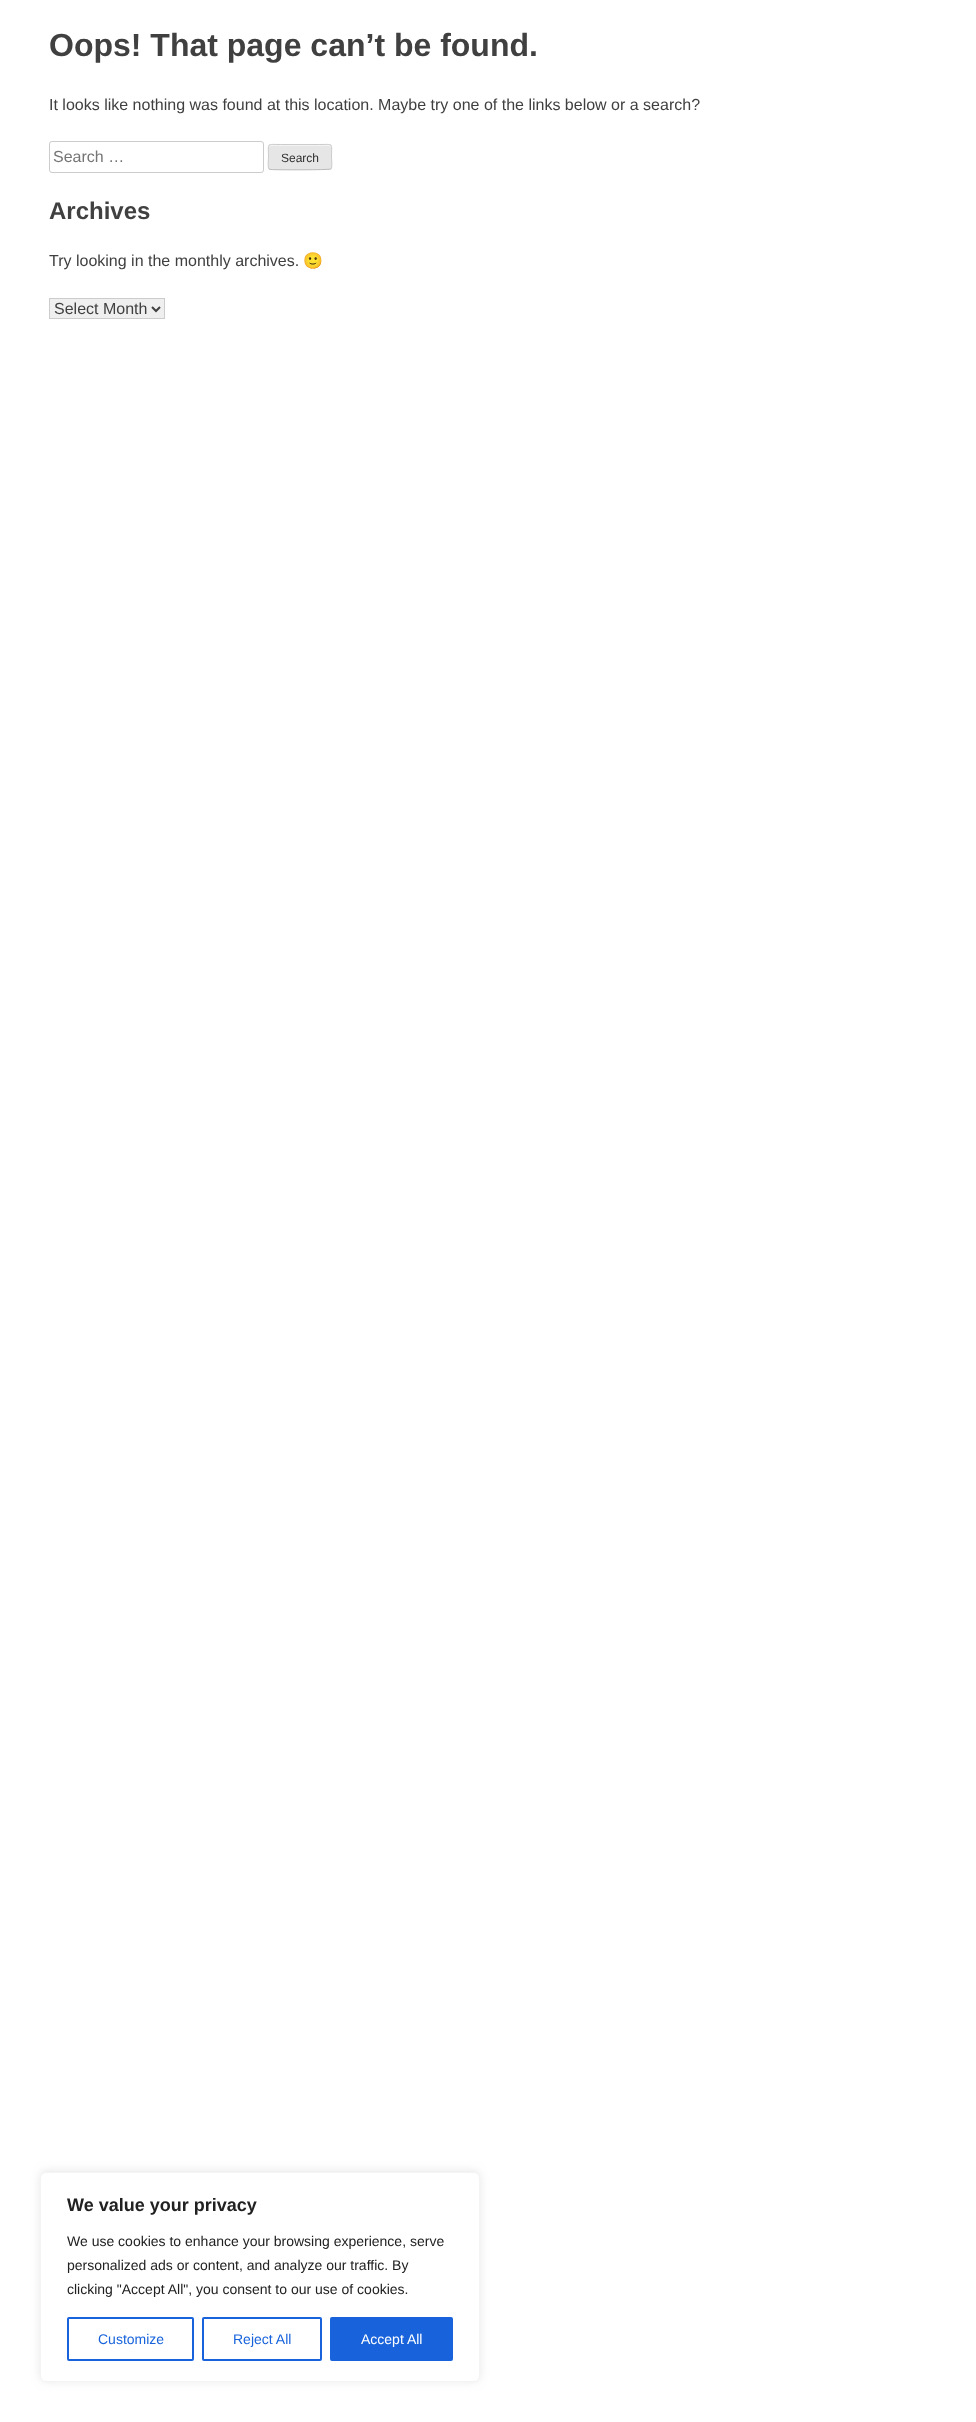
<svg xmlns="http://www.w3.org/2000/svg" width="976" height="2422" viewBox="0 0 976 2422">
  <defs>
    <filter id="blur1" x="-50%" y="-200%" width="200%" height="500%"><feGaussianBlur stdDeviation="5"/></filter>
  </defs>
  <rect width="100%" height="100%" fill="#ffffff"/>
  <text x="49" y="56" font-family="Liberation Sans" font-size="32" font-weight="bold" fill="#404040">Oops! That page can’t be found.</text>
  <text x="49" y="110" font-family="Liberation Sans" font-size="16" fill="#404040">It looks like nothing was found at this location. Maybe try one of the links below or a search?</text>
  <rect x="49.5" y="141.5" width="214" height="31" rx="2.5" fill="none" stroke="#cccccc"/>
  <text x="53" y="162" font-family="Liberation Sans" font-size="16" fill="#757575">Search …</text>
  <rect x="268" y="144" width="64" height="26" rx="3" fill="#e6e6e6"/>
  <path d="M271 146H329C330 146 331 147 331 148C331 142 323 145 319 145H281C277 145 269 142 269 148C269 147 270 146 271 146Z" fill="#f3f3f3"/>
  <path d="M331 169H330.5C329.5 170 276 170 271 169.5L269 169" fill="none" stroke="#bbbbbb"/>
  <path d="M269 169C267.5 167 268.5 159.5 268.5 157C268.5 142.5 266 144.5 280.5 144.5H319.5C334 144.5 331.5 142.5 331.5 157C331.5 159.5 332.5 167 331 169" fill="none" stroke="#cccccc"/>
  <text x="281" y="162" font-family="Liberation Sans" font-size="12" fill="#2e2e2e">Search</text>
  <text x="49" y="219" font-family="Liberation Sans" font-size="24" font-weight="bold" fill="#404040">Archives</text>
  <text x="49" y="266" font-family="Liberation Sans" font-size="16" fill="#404040">Try looking in the monthly archives.</text>
  <text x="303" y="266" font-family="Noto Color Emoji" font-size="16" fill="#404040">🙂</text>
  <rect x="49.5" y="298.5" width="115" height="20" fill="#efefef" stroke="#cccccc"/>
  <path d="M152 307L156 311L160 307" fill="none" stroke="#404040" stroke-width="2"/>
  <text x="54" y="314" font-family="Liberation Sans" font-size="16" fill="#404040">Select Month</text>
  <rect x="40" y="2171" width="440" height="210" rx="6" fill="#acabab" fill-opacity="0.3" filter="url(#blur1)"/>
  <rect x="40.5" y="2172.5" width="439" height="209" rx="5.5" fill="#ffffff" stroke="#f4f4f4"/>
  <text x="67" y="2211" font-family="Liberation Sans" font-size="18" font-weight="bold" fill="#212121">We value your privacy</text>
  <text x="67" y="2246" font-family="Liberation Sans" font-size="14" fill="#212121">We use cookies to enhance your browsing experience, serve</text>
  <text x="67" y="2270" font-family="Liberation Sans" font-size="14" fill="#212121">personalized ads or content, and analyze our traffic. By</text>
  <text x="67" y="2294" font-family="Liberation Sans" font-size="14" fill="#212121">clicking "Accept All", you consent to our use of cookies.</text>
  <rect x="68" y="2318" width="125" height="42" rx="1" fill="none" stroke="#1863dc" stroke-width="2"/>
  <text x="98" y="2344" font-family="Liberation Sans" font-size="14" fill="#1863dc">Customize</text>
  <rect x="203" y="2318" width="118" height="42" rx="1" fill="none" stroke="#1863dc" stroke-width="2"/>
  <text x="233" y="2344" font-family="Liberation Sans" font-size="14" fill="#1863dc">Reject All</text>
  <rect x="331" y="2318" width="121" height="42" rx="1" fill="#1863dc" stroke="#1863dc" stroke-width="2"/>
  <text x="361" y="2344" font-family="Liberation Sans" font-size="14" fill="#ffffff">Accept All</text>
</svg>
